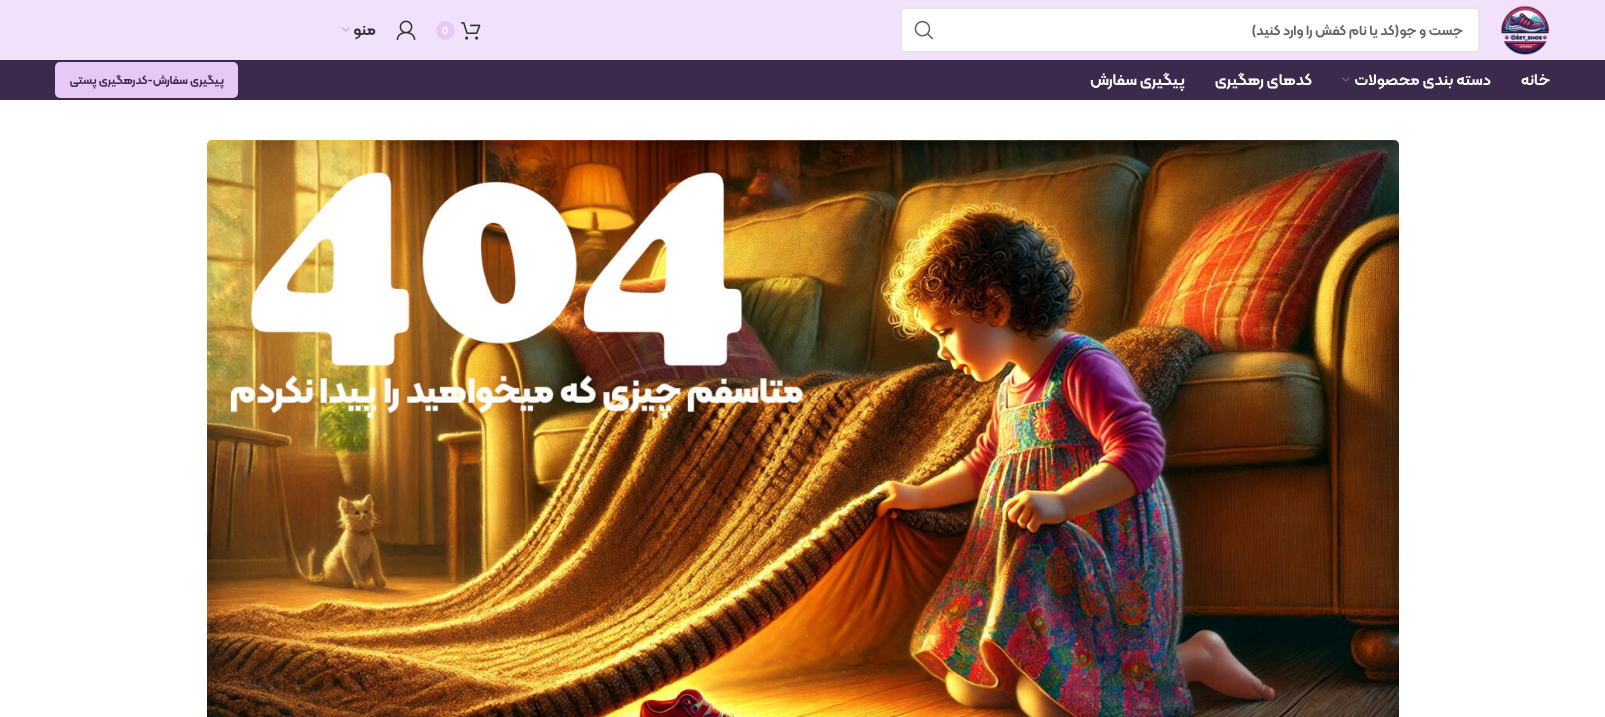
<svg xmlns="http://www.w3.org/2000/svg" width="1605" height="717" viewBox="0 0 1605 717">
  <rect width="100%" height="100%" fill="#ffffff"/>
  <rect x="0" y="0" width="1605" height="60" fill="#f2e1fa"/>
  <image x="1500" y="5" width="50" height="50" href="img1.png"/>
  <rect x="900" y="7" width="580" height="46" rx="5" fill="#ffffff"/>
  <rect x="901" y="8" width="578" height="44" rx="4" fill="none" stroke="#000000" stroke-opacity="0.1" stroke-width="2"/>
  <text x="1463" y="35" font-family="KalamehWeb" font-size="14" font-weight="600" direction="rtl" fill="#636363">جست و جو(کد یا نام کفش را وارد کنید)</text>
  <image x="914" y="20" width="20" height="20" href="img2.png"/>
  <image x="461" y="22" width="20" height="18" href="img3.png"/>
  <circle cx="445.5" cy="30.5" r="9.5" fill="#e7c9f5"/>
  <text x="442" y="34" font-family="KalamehWeb" font-size="10" font-weight="600" fill="#ffffff">0</text>
  <image x="396" y="20" width="20" height="20" href="img4.png"/>
  <text x="376" y="35" font-family="KalamehWeb" font-size="16" font-weight="600" direction="rtl" fill="#333333">منو</text>
  <image x="342" y="27" width="8" height="5" href="img5.png"/>
  <rect x="0" y="60" width="1605" height="40" fill="#3c2a4d"/>
  <text x="1550" y="85" font-family="KalamehWeb" font-size="16" font-weight="600" direction="rtl" fill="#ffffff">خانه</text>
  <text x="1491" y="85" font-family="KalamehWeb" font-size="16" font-weight="600" direction="rtl" fill="#ffffff">دسته بندی محصولات</text>
  <image x="1342" y="77" width="8" height="5" href="img6.png"/>
  <text x="1312" y="85" font-family="KalamehWeb" font-size="16" font-weight="600" direction="rtl" fill="#ffffff">کدهای رهگیری</text>
  <text x="1185" y="85" font-family="KalamehWeb" font-size="16" font-weight="600" direction="rtl" fill="#ffffff">پیگیری سفارش</text>
  <rect x="55" y="62" width="183" height="36" rx="5" fill="#e7c9f5"/>
  <text x="224" y="84" font-family="KalamehWeb" font-size="12" font-weight="600" direction="rtl" fill="#3c2a4d">پیگیری سفارش-کدرهگیری پستی</text>
  <image x="207" y="140" width="1192" height="577" href="img7.png"/>
</svg>
